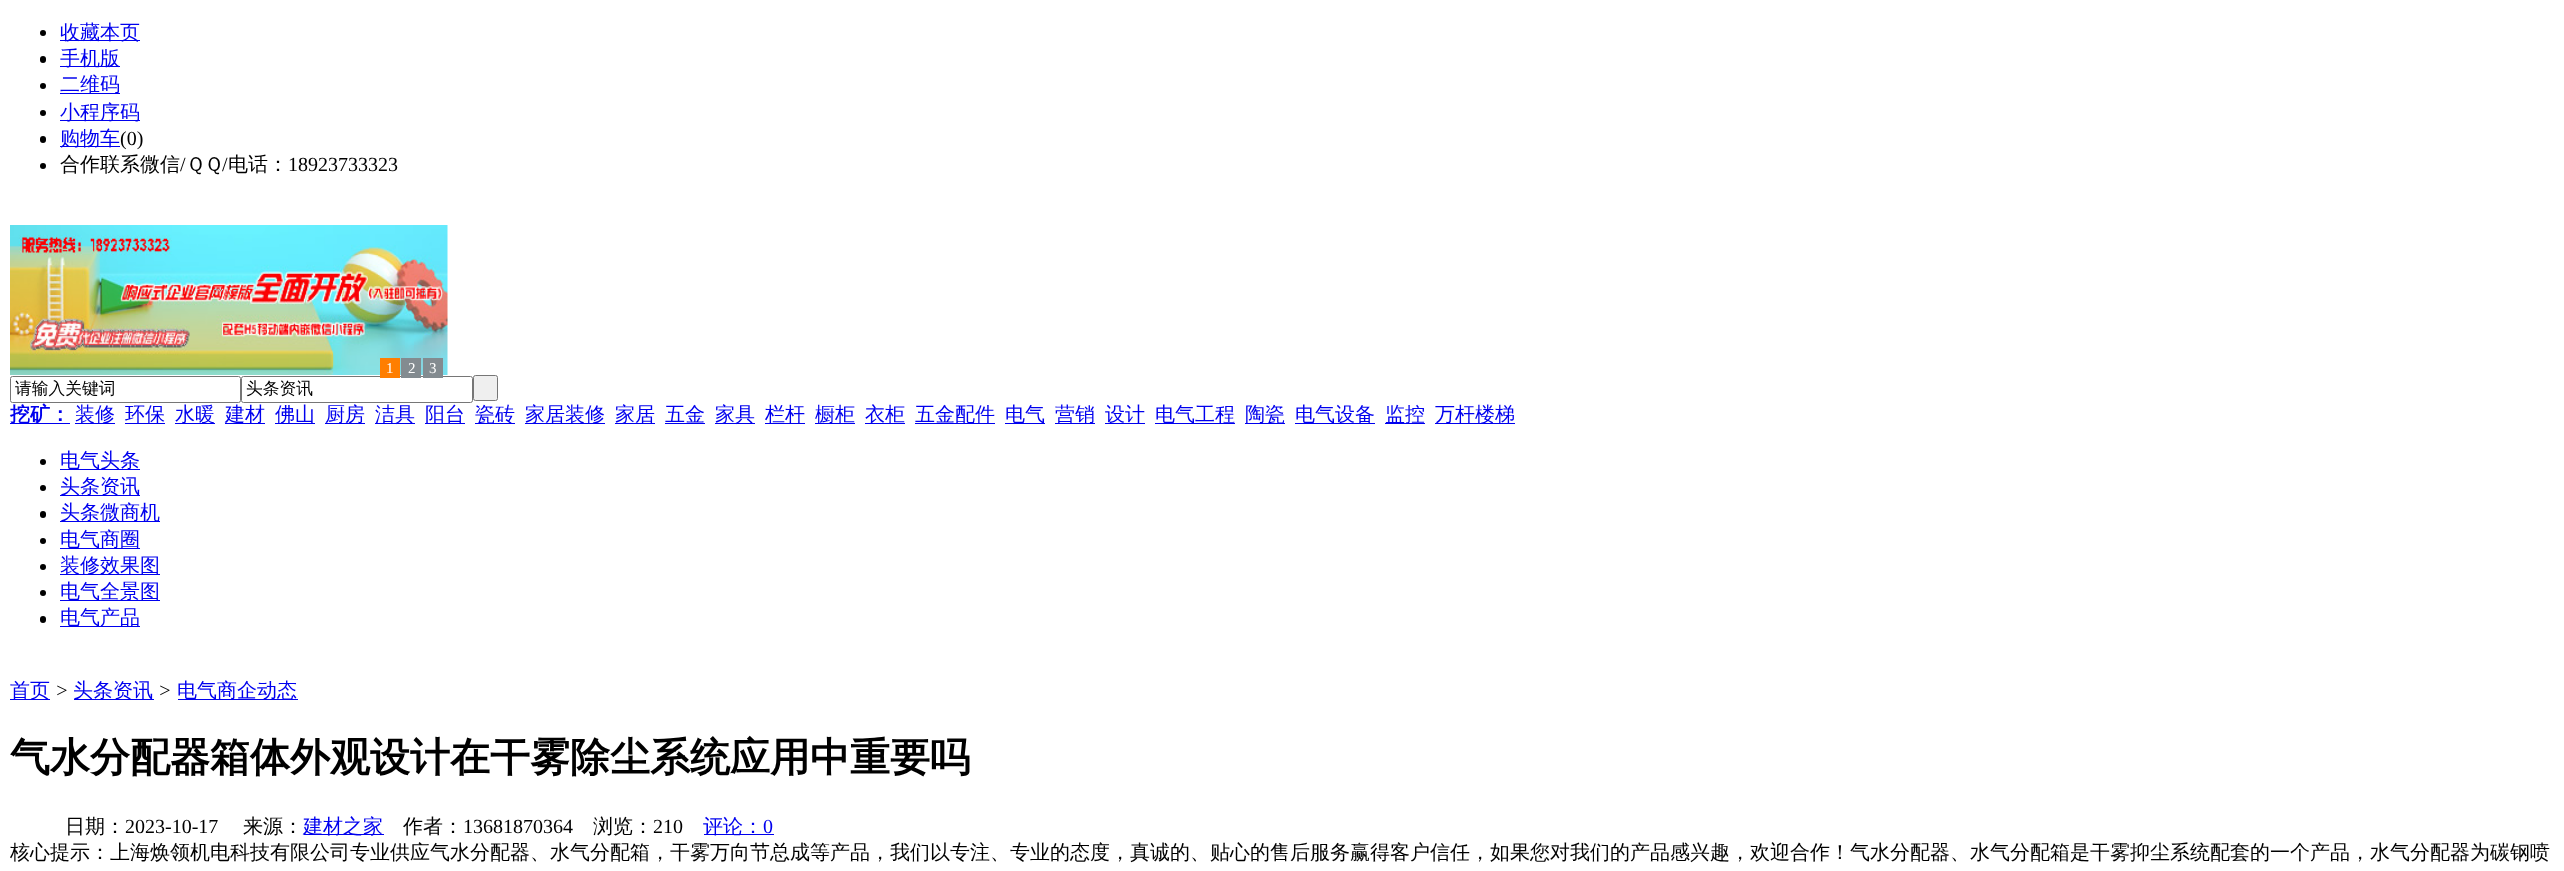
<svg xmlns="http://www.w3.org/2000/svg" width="2564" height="871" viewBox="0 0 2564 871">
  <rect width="100%" height="100%" fill="#ffffff"/>
  <circle cx="43" cy="33" r="3" fill="#000000"/>
  <rect x="60" y="40" width="80" height="1" fill="#0000ee"/>
  <text x="60" y="39" font-family="WenQuanYi Zen Hei" font-size="20" font-weight="500" fill="#0000ee">收藏本页</text>
  <rect x="40" y="56" width="6" height="7" rx="3" fill="#000000"/>
  <rect x="60" y="66" width="60" height="1" fill="#0000ee"/>
  <text x="60" y="65" font-family="WenQuanYi Zen Hei" font-size="20" font-weight="500" fill="#0000ee">手机版</text>
  <circle cx="43" cy="86" r="3" fill="#000000"/>
  <rect x="60" y="93" width="60" height="1" fill="#0000ee"/>
  <text x="60" y="91" font-family="WenQuanYi Zen Hei" font-size="20" font-weight="500" fill="#0000ee">二维码</text>
  <circle cx="43" cy="113" r="3" fill="#000000"/>
  <rect x="60" y="120" width="80" height="1" fill="#0000ee"/>
  <text x="60" y="119" font-family="WenQuanYi Zen Hei" font-size="20" font-weight="500" fill="#0000ee">小程序码</text>
  <rect x="40" y="136" width="6" height="7" rx="3" fill="#000000"/>
  <rect x="60" y="146" width="60" height="1" fill="#0000ee"/>
  <text x="60" y="145" font-family="WenQuanYi Zen Hei" font-size="20" font-weight="500" fill="#0000ee">购物车</text>
  <text x="120" y="145" font-family="Liberation Serif" font-size="20" fill="#000000">(0)</text>
  <circle cx="43" cy="166" r="3" fill="#000000"/>
  <text x="60" y="171" font-family="WenQuanYi Zen Hei" font-size="20" font-weight="500" fill="#000000">合作联系微信</text>
  <text x="180" y="171" font-family="Liberation Serif" font-size="20" fill="#000000">/</text>
  <text x="186" y="171" font-family="WenQuanYi Zen Hei" font-size="20" font-weight="500" fill="#000000">ＱＱ</text>
  <text x="222" y="171" font-family="Liberation Serif" font-size="20" fill="#000000">/</text>
  <text x="228" y="171" font-family="WenQuanYi Zen Hei" font-size="20" font-weight="500" fill="#000000">电话：</text>
  <text x="288" y="171" font-family="Liberation Serif" font-size="20" fill="#000000">18923733323</text>
  <image x="10" y="225" width="438" height="150" href="img1.png"/>
  <rect x="241.5" y="376.5" width="231" height="26" rx="2" fill="none" stroke="#767676"/>
  <rect x="380" y="358" width="20" height="20" fill="#ff7e00"/>
  <text x="386" y="373" font-family="Liberation Serif" font-size="15" fill="#ffffff">1</text>
  <rect x="401" y="358" width="20" height="20" fill="#838b90"/>
  <text x="408" y="373" font-family="Liberation Serif" font-size="15" fill="#ffffff">2</text>
  <rect x="423" y="358" width="20" height="20" fill="#838b90"/>
  <text x="429" y="373" font-family="Liberation Serif" font-size="15" fill="#ffffff">3</text>
  <rect x="10.5" y="376.5" width="230" height="26" rx="2" fill="none" stroke="#767676"/>
  <text x="15" y="394" font-family="WenQuanYi Zen Hei" font-size="16.75" font-weight="500" fill="#000000">请输入关键词</text>
  <text x="246" y="394" font-family="WenQuanYi Zen Hei" font-size="16.75" font-weight="500" fill="#000000">头条资讯</text>
  <rect x="473.5" y="375.5" width="24" height="25" rx="2" fill="#efefef" stroke="#767676"/>
  <rect x="10" y="423" width="60" height="1" fill="#0000ee"/>
  <text x="10" y="421" font-family="WenQuanYi Zen Hei" font-size="20" font-weight="bold" fill="#0000ee">挖矿：</text>
  <rect x="75" y="423" width="40" height="1" fill="#0000ee"/>
  <text x="75" y="421" font-family="WenQuanYi Zen Hei" font-size="20" font-weight="500" fill="#0000ee">装修</text>
  <rect x="125" y="423" width="40" height="1" fill="#0000ee"/>
  <text x="125" y="421" font-family="WenQuanYi Zen Hei" font-size="20" font-weight="500" fill="#0000ee">环保</text>
  <rect x="175" y="423" width="40" height="1" fill="#0000ee"/>
  <text x="175" y="421" font-family="WenQuanYi Zen Hei" font-size="20" font-weight="500" fill="#0000ee">水暖</text>
  <rect x="225" y="423" width="40" height="1" fill="#0000ee"/>
  <text x="225" y="421" font-family="WenQuanYi Zen Hei" font-size="20" font-weight="500" fill="#0000ee">建材</text>
  <rect x="275" y="423" width="40" height="1" fill="#0000ee"/>
  <text x="275" y="421" font-family="WenQuanYi Zen Hei" font-size="20" font-weight="500" fill="#0000ee">佛山</text>
  <rect x="325" y="423" width="40" height="1" fill="#0000ee"/>
  <text x="325" y="421" font-family="WenQuanYi Zen Hei" font-size="20" font-weight="500" fill="#0000ee">厨房</text>
  <rect x="375" y="423" width="40" height="1" fill="#0000ee"/>
  <text x="375" y="421" font-family="WenQuanYi Zen Hei" font-size="20" font-weight="500" fill="#0000ee">洁具</text>
  <rect x="425" y="423" width="40" height="1" fill="#0000ee"/>
  <text x="425" y="421" font-family="WenQuanYi Zen Hei" font-size="20" font-weight="500" fill="#0000ee">阳台</text>
  <rect x="475" y="423" width="40" height="1" fill="#0000ee"/>
  <text x="475" y="421" font-family="WenQuanYi Zen Hei" font-size="20" font-weight="500" fill="#0000ee">瓷砖</text>
  <rect x="525" y="423" width="80" height="1" fill="#0000ee"/>
  <text x="525" y="421" font-family="WenQuanYi Zen Hei" font-size="20" font-weight="500" fill="#0000ee">家居装修</text>
  <rect x="615" y="423" width="40" height="1" fill="#0000ee"/>
  <text x="615" y="421" font-family="WenQuanYi Zen Hei" font-size="20" font-weight="500" fill="#0000ee">家居</text>
  <text x="665" y="421" font-family="WenQuanYi Zen Hei" font-size="20" font-weight="500" fill="#0000ee">五金</text>
  <rect x="665" y="423" width="40" height="1" fill="#0000ee"/>
  <rect x="715" y="423" width="40" height="1" fill="#0000ee"/>
  <text x="715" y="421" font-family="WenQuanYi Zen Hei" font-size="20" font-weight="500" fill="#0000ee">家具</text>
  <rect x="765" y="423" width="40" height="1" fill="#0000ee"/>
  <text x="765" y="421" font-family="WenQuanYi Zen Hei" font-size="20" font-weight="500" fill="#0000ee">栏杆</text>
  <rect x="815" y="423" width="40" height="1" fill="#0000ee"/>
  <text x="815" y="421" font-family="WenQuanYi Zen Hei" font-size="20" font-weight="500" fill="#0000ee">橱柜</text>
  <rect x="865" y="423" width="40" height="1" fill="#0000ee"/>
  <text x="865" y="421" font-family="WenQuanYi Zen Hei" font-size="20" font-weight="500" fill="#0000ee">衣柜</text>
  <rect x="915" y="423" width="80" height="1" fill="#0000ee"/>
  <text x="915" y="421" font-family="WenQuanYi Zen Hei" font-size="20" font-weight="500" fill="#0000ee">五金配件</text>
  <rect x="1005" y="423" width="40" height="1" fill="#0000ee"/>
  <text x="1005" y="421" font-family="WenQuanYi Zen Hei" font-size="20" font-weight="500" fill="#0000ee">电气</text>
  <rect x="1055" y="423" width="40" height="1" fill="#0000ee"/>
  <text x="1055" y="421" font-family="WenQuanYi Zen Hei" font-size="20" font-weight="500" fill="#0000ee">营销</text>
  <rect x="1105" y="423" width="40" height="1" fill="#0000ee"/>
  <text x="1105" y="421" font-family="WenQuanYi Zen Hei" font-size="20" font-weight="500" fill="#0000ee">设计</text>
  <rect x="1155" y="423" width="80" height="1" fill="#0000ee"/>
  <text x="1155" y="421" font-family="WenQuanYi Zen Hei" font-size="20" font-weight="500" fill="#0000ee">电气工程</text>
  <rect x="1245" y="423" width="40" height="1" fill="#0000ee"/>
  <text x="1245" y="421" font-family="WenQuanYi Zen Hei" font-size="20" font-weight="500" fill="#0000ee">陶瓷</text>
  <rect x="1295" y="423" width="80" height="1" fill="#0000ee"/>
  <text x="1295" y="421" font-family="WenQuanYi Zen Hei" font-size="20" font-weight="500" fill="#0000ee">电气设备</text>
  <rect x="1385" y="423" width="40" height="1" fill="#0000ee"/>
  <text x="1385" y="421" font-family="WenQuanYi Zen Hei" font-size="20" font-weight="500" fill="#0000ee">监控</text>
  <rect x="1435" y="423" width="80" height="1" fill="#0000ee"/>
  <text x="1435" y="421" font-family="WenQuanYi Zen Hei" font-size="20" font-weight="500" fill="#0000ee">万杆楼梯</text>
  <circle cx="43" cy="462" r="3" fill="#000000"/>
  <rect x="60" y="469" width="80" height="1" fill="#0000ee"/>
  <text x="60" y="467" font-family="WenQuanYi Zen Hei" font-size="20" font-weight="500" fill="#0000ee">电气头条</text>
  <circle cx="43" cy="488" r="3" fill="#000000"/>
  <rect x="60" y="495" width="80" height="1" fill="#0000ee"/>
  <text x="60" y="493" font-family="WenQuanYi Zen Hei" font-size="20" font-weight="500" fill="#0000ee">头条资讯</text>
  <rect x="40" y="511" width="6" height="7" rx="3" fill="#000000"/>
  <rect x="60" y="521" width="100" height="1" fill="#0000ee"/>
  <text x="60" y="519" font-family="WenQuanYi Zen Hei" font-size="20" font-weight="500" fill="#0000ee">头条微商机</text>
  <circle cx="43" cy="541" r="3" fill="#000000"/>
  <rect x="60" y="548" width="80" height="1" fill="#0000ee"/>
  <text x="60" y="546" font-family="WenQuanYi Zen Hei" font-size="20" font-weight="500" fill="#0000ee">电气商圈</text>
  <circle cx="43" cy="567" r="3" fill="#000000"/>
  <rect x="60" y="574" width="100" height="1" fill="#0000ee"/>
  <text x="60" y="572" font-family="WenQuanYi Zen Hei" font-size="20" font-weight="500" fill="#0000ee">装修效果图</text>
  <circle cx="43" cy="593" r="3" fill="#000000"/>
  <rect x="60" y="600" width="100" height="1" fill="#0000ee"/>
  <text x="60" y="598" font-family="WenQuanYi Zen Hei" font-size="20" font-weight="500" fill="#0000ee">电气全景图</text>
  <rect x="40" y="616" width="6" height="7" rx="3" fill="#000000"/>
  <rect x="60" y="626" width="80" height="1" fill="#0000ee"/>
  <text x="60" y="624" font-family="WenQuanYi Zen Hei" font-size="20" font-weight="500" fill="#0000ee">电气产品</text>
  <rect x="10" y="699" width="40" height="1" fill="#0000ee"/>
  <text x="10" y="697" font-family="WenQuanYi Zen Hei" font-size="20" font-weight="500" fill="#0000ee">首页</text>
  <text x="55" y="697" font-family="Liberation Serif" font-size="20" font-style="italic" fill="#000000">&gt;</text>
  <rect x="74" y="699" width="80" height="1" fill="#0000ee"/>
  <text x="73" y="697" font-family="WenQuanYi Zen Hei" font-size="20" font-weight="500" fill="#0000ee">头条资讯</text>
  <text x="158" y="697" font-family="Liberation Serif" font-size="20" font-style="italic" fill="#000000">&gt;</text>
  <rect x="178" y="699" width="120" height="1" fill="#0000ee"/>
  <text x="177" y="697" font-family="WenQuanYi Zen Hei" font-size="20" font-weight="500" fill="#0000ee">电气商企动态</text>
  <text x="10" y="771" font-family="WenQuanYi Zen Hei" font-size="40" font-weight="bold" fill="#000000">气水分配器箱体外观设计在干雾除尘系统应用中重要吗</text>
  <text x="65" y="833" font-family="WenQuanYi Zen Hei" font-size="20" font-weight="500" fill="#000000">日期：</text>
  <text x="125" y="833" font-family="Liberation Serif" font-size="20" fill="#000000">2023-10-17</text>
  <text x="243" y="833" font-family="WenQuanYi Zen Hei" font-size="20" font-weight="500" fill="#000000">来源：</text>
  <rect x="304" y="834" width="80" height="1" fill="#0000ee"/>
  <text x="303" y="833" font-family="WenQuanYi Zen Hei" font-size="20" font-weight="500" fill="#0000ee">建材之家</text>
  <text x="403" y="833" font-family="WenQuanYi Zen Hei" font-size="20" font-weight="500" fill="#000000">作者：</text>
  <text x="463" y="833" font-family="Liberation Serif" font-size="20" fill="#000000">13681870364</text>
  <text x="593" y="833" font-family="WenQuanYi Zen Hei" font-size="20" font-weight="500" fill="#000000">浏览：</text>
  <text x="653" y="833" font-family="Liberation Serif" font-size="20" fill="#000000">210</text>
  <rect x="704" y="834" width="70" height="1" fill="#0000ee"/>
  <text x="703" y="833" font-family="WenQuanYi Zen Hei" font-size="20" font-weight="500" fill="#0000ee">评论：</text>
  <text x="763" y="833" font-family="Liberation Serif" font-size="20" fill="#0000ee">0</text>
  <text x="10" y="859" font-family="WenQuanYi Zen Hei" font-size="20" font-weight="500" fill="#000000">核心提示：上海焕领机电科技有限公司专业供应气水分配器、水气分配箱，干雾万向节总成等产品，我们以专注、专业的态度，真诚的、贴心的售后服务赢得客户信任，如果您对我们的产品感兴趣，欢迎合作！气水分配器、水气分配箱是干雾抑尘系统配套的一个产品，水气分配器为碳钢喷</text>
</svg>
